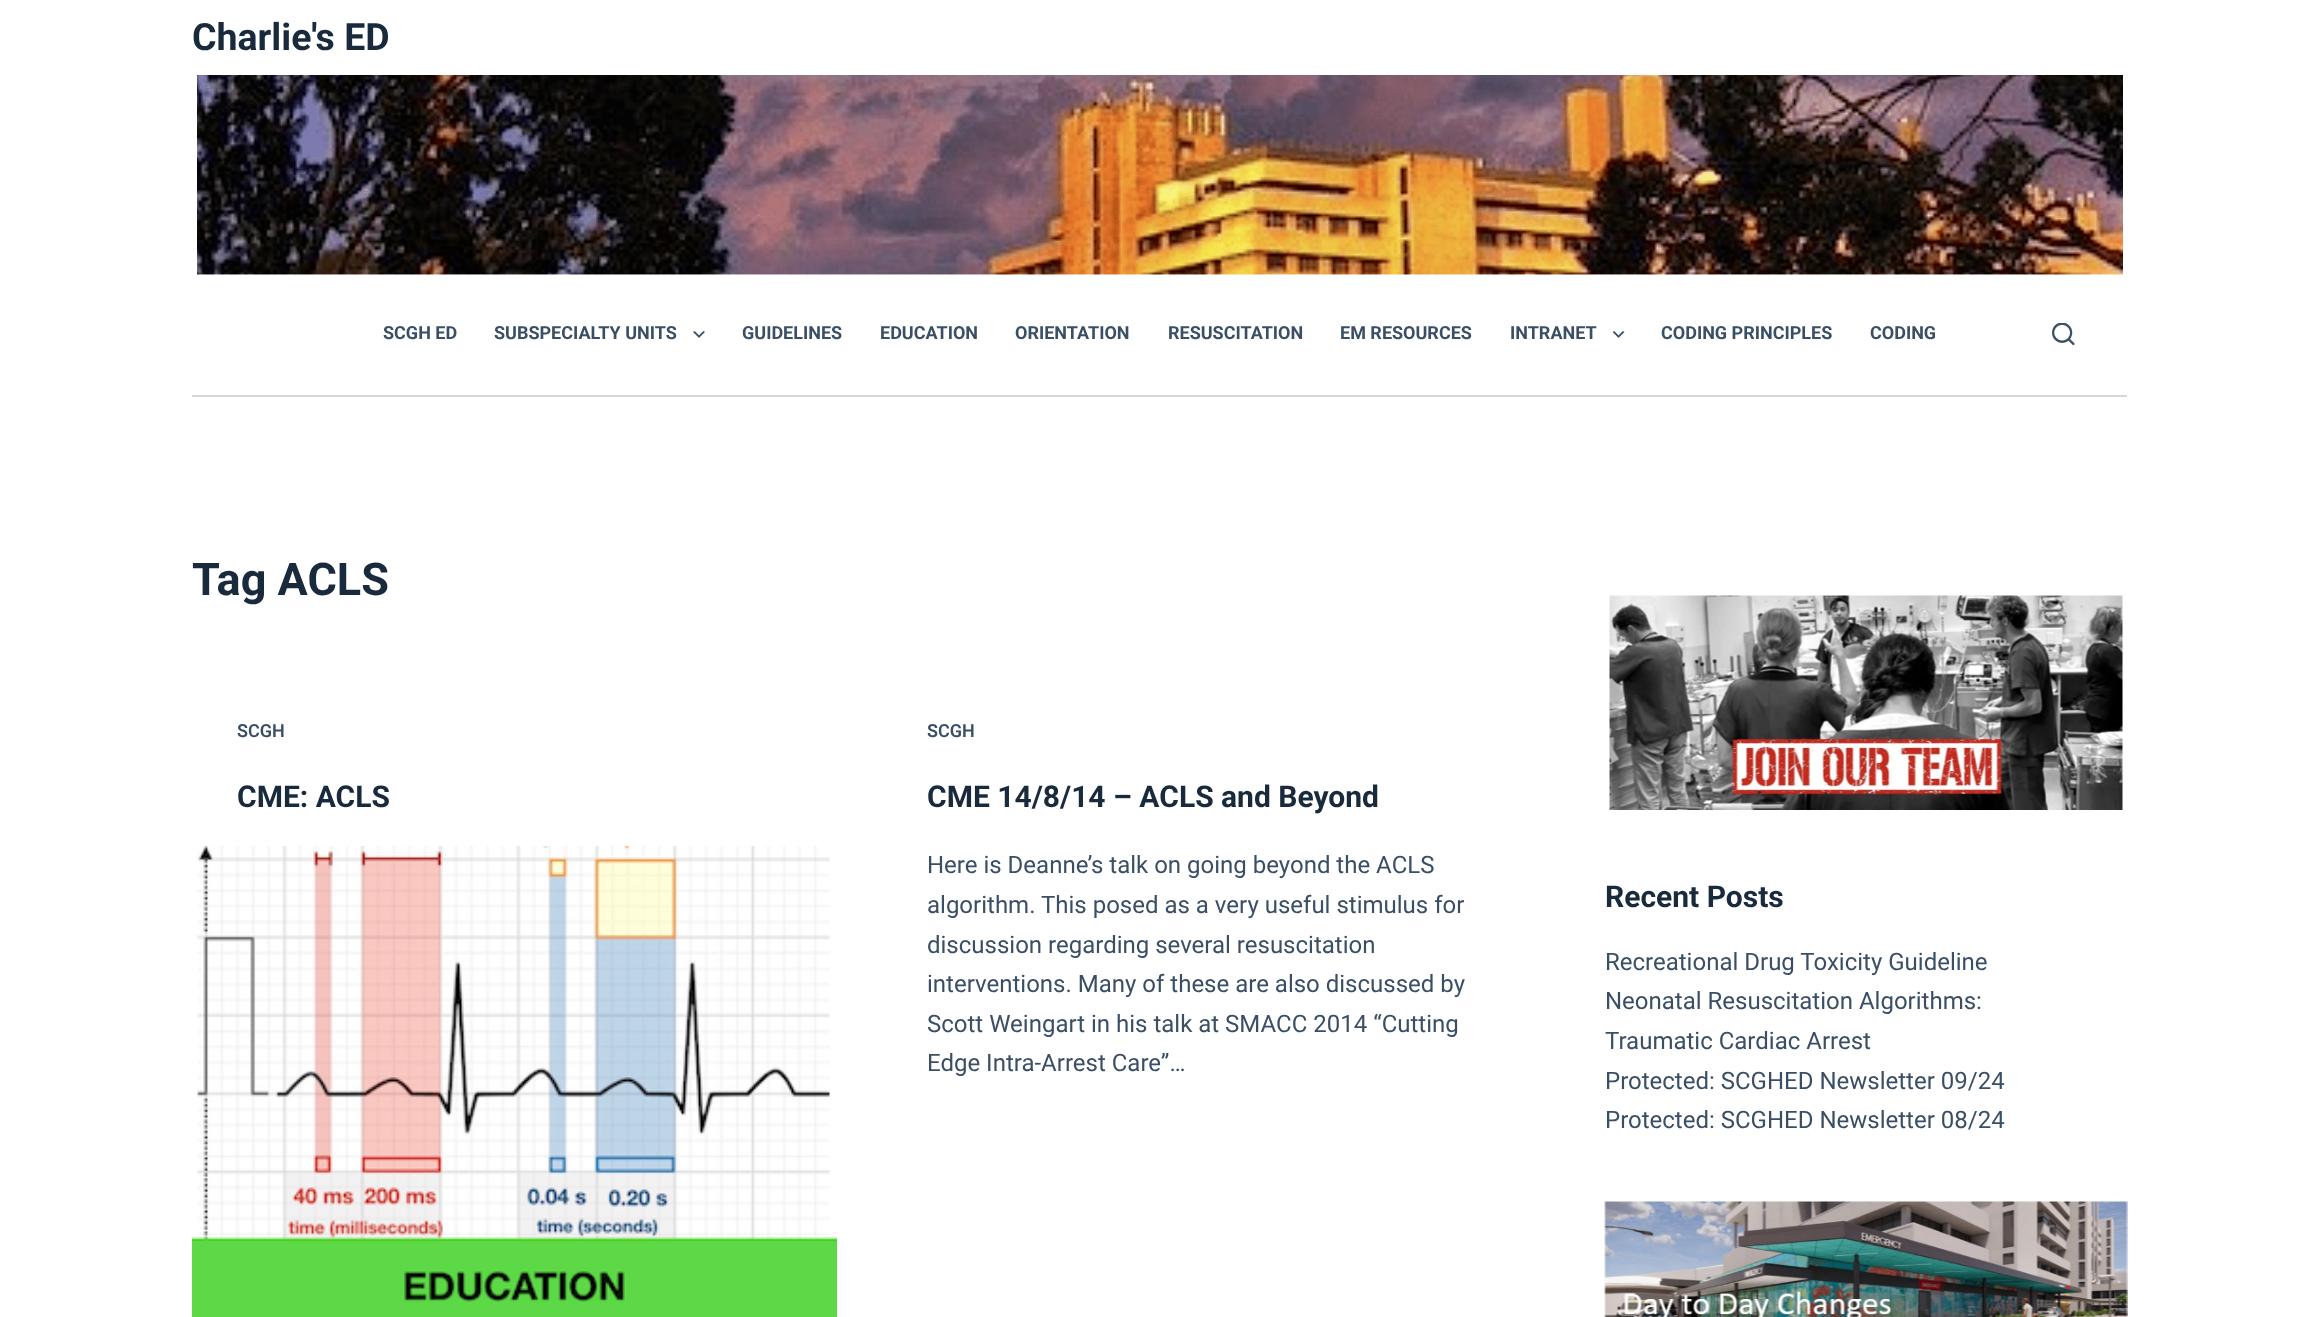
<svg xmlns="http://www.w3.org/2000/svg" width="2319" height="1317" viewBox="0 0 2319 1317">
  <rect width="100%" height="100%" fill="#ffffff"/>
  <text x="192" y="50" font-family="Roboto" font-size="37.5" font-weight="bold" fill="#192a3d">Charlie's ED</text>
  <image x="197" y="75" width="1926" height="200" href="img1.png"/>
  <rect x="192" y="395" width="1935" height="2" fill="#d5d8dc"/>
  <text x="383" y="339" font-family="Roboto" font-size="18" font-weight="bold" fill="#3a4f66">SCGH ED</text>
  <text x="494" y="339" font-family="Roboto" font-size="18" font-weight="bold" fill="#3a4f66">SUBSPECIALTY UNITS</text>
  <image x="693" y="331" width="12" height="7" href="img2.png"/>
  <text x="742" y="339" font-family="Roboto" font-size="18" font-weight="bold" fill="#3a4f66">GUIDELINES</text>
  <text x="880" y="339" font-family="Roboto" font-size="18" font-weight="bold" fill="#3a4f66">EDUCATION</text>
  <text x="1015" y="339" font-family="Roboto" font-size="18" font-weight="bold" fill="#3a4f66">ORIENTATION</text>
  <text x="1168" y="339" font-family="Roboto" font-size="18" font-weight="bold" fill="#3a4f66">RESUSCITATION</text>
  <text x="1340" y="339" font-family="Roboto" font-size="18" font-weight="bold" fill="#3a4f66">EM RESOURCES</text>
  <text x="1510" y="339" font-family="Roboto" font-size="18" font-weight="bold" fill="#3a4f66">INTRANET</text>
  <image x="1613" y="331" width="12" height="7" href="img3.png"/>
  <text x="1661" y="339" font-family="Roboto" font-size="18" font-weight="bold" fill="#3a4f66">CODING PRINCIPLES</text>
  <text x="1870" y="339" font-family="Roboto" font-size="18" font-weight="bold" fill="#3a4f66">CODING</text>
  <image x="2052" y="323" width="23" height="22" href="img4.png"/>
  <text x="192" y="595" font-family="Roboto" font-size="45" font-weight="bold" fill="#192a3d">Tag ACLS</text>
  <text x="237" y="737" font-family="Roboto" font-size="18" font-weight="600" fill="#3a4f66">SCGH</text>
  <text x="237" y="807" font-family="Roboto" font-size="30" font-weight="bold" fill="#192a3d">CME: ACLS</text>
  <image x="192" y="846" width="645" height="471" href="img5.png"/>
  <text x="927" y="737" font-family="Roboto" font-size="18" font-weight="600" fill="#3a4f66">SCGH</text>
  <text x="927" y="807" font-family="Roboto" font-size="30" font-weight="bold" fill="#192a3d">CME 14/8/14 – ACLS and Beyond</text>
  <text x="927" y="873" font-family="Roboto" font-size="24" fill="#3a4f66">Here is Deanne’s talk on going beyond the ACLS</text>
  <text x="927" y="913" font-family="Roboto" font-size="24" fill="#3a4f66">algorithm. This posed as a very useful stimulus for</text>
  <text x="927" y="953" font-family="Roboto" font-size="24" fill="#3a4f66">discussion regarding several resuscitation</text>
  <text x="927" y="992" font-family="Roboto" font-size="24" fill="#3a4f66">interventions. Many of these are also discussed by</text>
  <text x="927" y="1032" font-family="Roboto" font-size="24" fill="#3a4f66">Scott Weingart in his talk at SMACC 2014 “Cutting</text>
  <text x="927" y="1071" font-family="Roboto" font-size="24" fill="#3a4f66">Edge Intra-Arrest Care”…</text>
  <image x="1609" y="595" width="514" height="215" href="img6.png"/>
  <text x="1605" y="907" font-family="Roboto" font-size="30" font-weight="bold" fill="#192a3d">Recent Posts</text>
  <text x="1605" y="970" font-family="Roboto" font-size="24" fill="#3a4f66">Recreational Drug Toxicity Guideline</text>
  <text x="1605" y="1009" font-family="Roboto" font-size="24" fill="#3a4f66">Neonatal Resuscitation Algorithms:</text>
  <text x="1605" y="1049" font-family="Roboto" font-size="24" fill="#3a4f66">Traumatic Cardiac Arrest</text>
  <text x="1605" y="1089" font-family="Roboto" font-size="24" fill="#3a4f66">Protected: SCGHED Newsletter 09/24</text>
  <text x="1605" y="1128" font-family="Roboto" font-size="24" fill="#3a4f66">Protected: SCGHED Newsletter 08/24</text>
  <image x="1604" y="1201" width="524" height="116" href="img7.png"/>
</svg>
